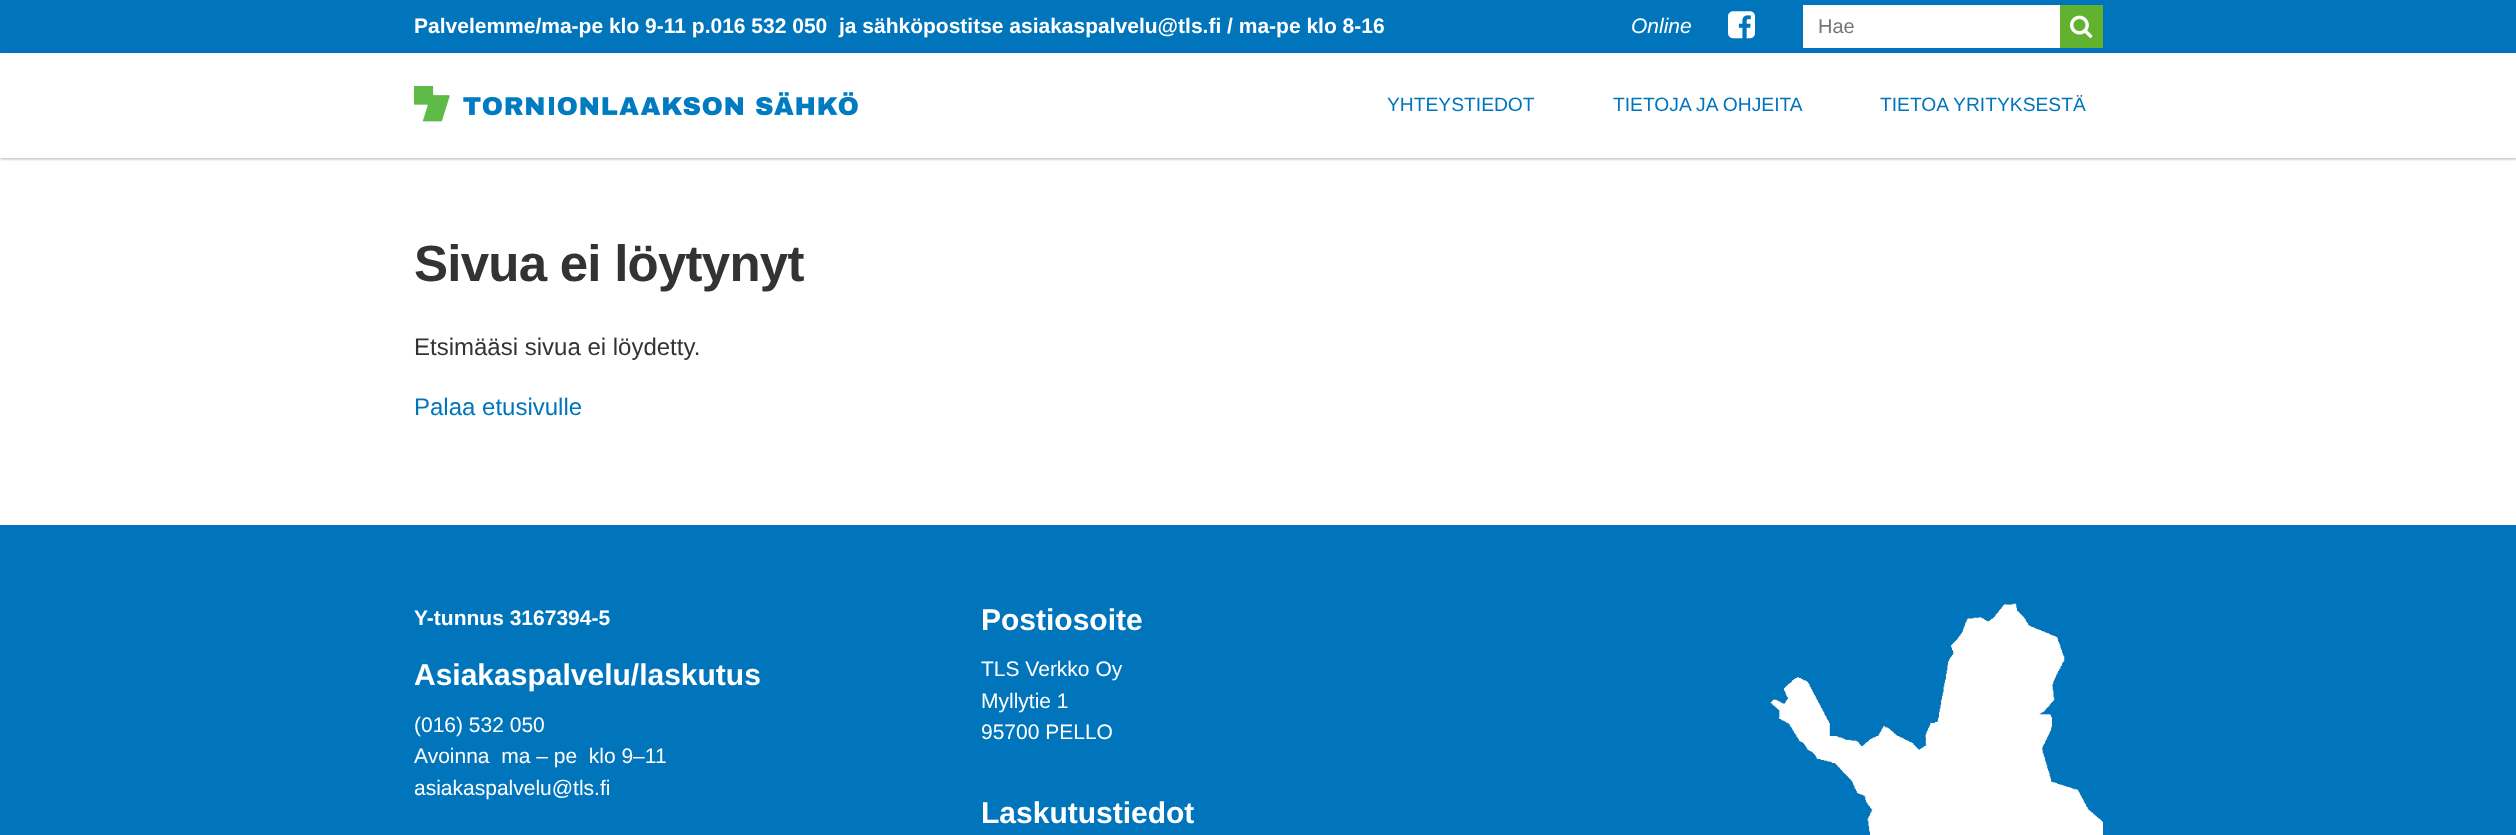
<svg xmlns="http://www.w3.org/2000/svg" width="2516" height="835" viewBox="0 0 2516 835">
  <defs>
    <filter id="blur1" x="-50%" y="-200%" width="200%" height="500%"><feGaussianBlur stdDeviation="1.5"/></filter>
  </defs>
  <rect width="100%" height="100%" fill="#ffffff"/>
  <rect x="0" y="0" width="2516" height="53" fill="#0075bc"/>
  <text x="414" y="33" font-family="Liberation Sans" font-size="21" font-weight="bold" fill="#ffffff" xml:space="preserve">Palvelemme/ma-pe klo 9-11 p.016 532 050  ja sähköpostitse asiakaspalvelu@tls.fi / ma-pe klo 8-16</text>
  <text x="1631" y="33" font-family="Liberation Sans" font-size="21" font-style="italic" fill="#ffffff">Online</text>
  <image x="1728" y="11" width="27" height="28" href="img1.png"/>
  <rect x="1803" y="5" width="257" height="43" fill="#ffffff"/>
  <text x="1818" y="33" font-family="Liberation Sans" font-size="20" fill="#757575">Hae</text>
  <rect x="2060" y="5" width="43" height="43" fill="#62b230"/>
  <image x="2070" y="15" width="23" height="23" href="img2.png"/>
  <rect x="0" y="54" width="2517" height="105" fill="#000000" fill-opacity="0.3" filter="url(#blur1)"/>
  <rect x="0" y="53" width="2516" height="105" fill="#ffffff"/>
  <image x="414" y="86" width="444" height="36" href="img3.png"/>
  <text x="1387" y="111" font-family="Liberation Sans" font-size="19.25" fill="#0075bc">YHTEYSTIEDOT</text>
  <text x="1613" y="111" font-family="Liberation Sans" font-size="19.25" fill="#0075bc">TIETOJA JA OHJEITA</text>
  <text x="1880" y="111" font-family="Liberation Sans" font-size="19.25" fill="#0075bc">TIETOA YRITYKSESTÄ</text>
  <text x="414" y="281" font-family="Liberation Sans" font-size="51" font-weight="bold" letter-spacing="-0.75" fill="#333333">Sivua ei löytynyt</text>
  <text x="414" y="355" font-family="Liberation Sans" font-size="24" fill="#333333">Etsimääsi sivua ei löydetty.</text>
  <text x="414" y="415" font-family="Liberation Sans" font-size="24" fill="#0075bc">Palaa etusivulle</text>
  <rect x="0" y="525" width="2516" height="310" fill="#0075bc"/>
  <text x="414" y="625" font-family="Liberation Sans" font-size="21" font-weight="bold" fill="#ffffff">Y-tunnus 3167394-5</text>
  <text x="414" y="685" font-family="Liberation Sans" font-size="30" font-weight="bold" fill="#ffffff">Asiakaspalvelu/laskutus</text>
  <text x="414" y="732" font-family="Liberation Sans" font-size="21" fill="#ffffff">(016) 532 050</text>
  <text x="414" y="763" font-family="Liberation Sans" font-size="21" fill="#ffffff" xml:space="preserve">Avoinna  ma – pe  klo 9–11</text>
  <text x="414" y="795" font-family="Liberation Sans" font-size="21" fill="#ffffff">asiakaspalvelu@tls.fi</text>
  <text x="981" y="630" font-family="Liberation Sans" font-size="30" font-weight="bold" fill="#ffffff">Postiosoite</text>
  <text x="981" y="676" font-family="Liberation Sans" font-size="21" fill="#ffffff">TLS Verkko Oy</text>
  <text x="981" y="708" font-family="Liberation Sans" font-size="21" fill="#ffffff">Myllytie 1</text>
  <text x="981" y="739" font-family="Liberation Sans" font-size="21" fill="#ffffff">95700 PELLO</text>
  <text x="981" y="823" font-family="Liberation Sans" font-size="30" font-weight="bold" fill="#ffffff">Laskutustiedot</text>
  <image x="1770" y="603" width="333" height="232" href="img4.png"/>
</svg>
